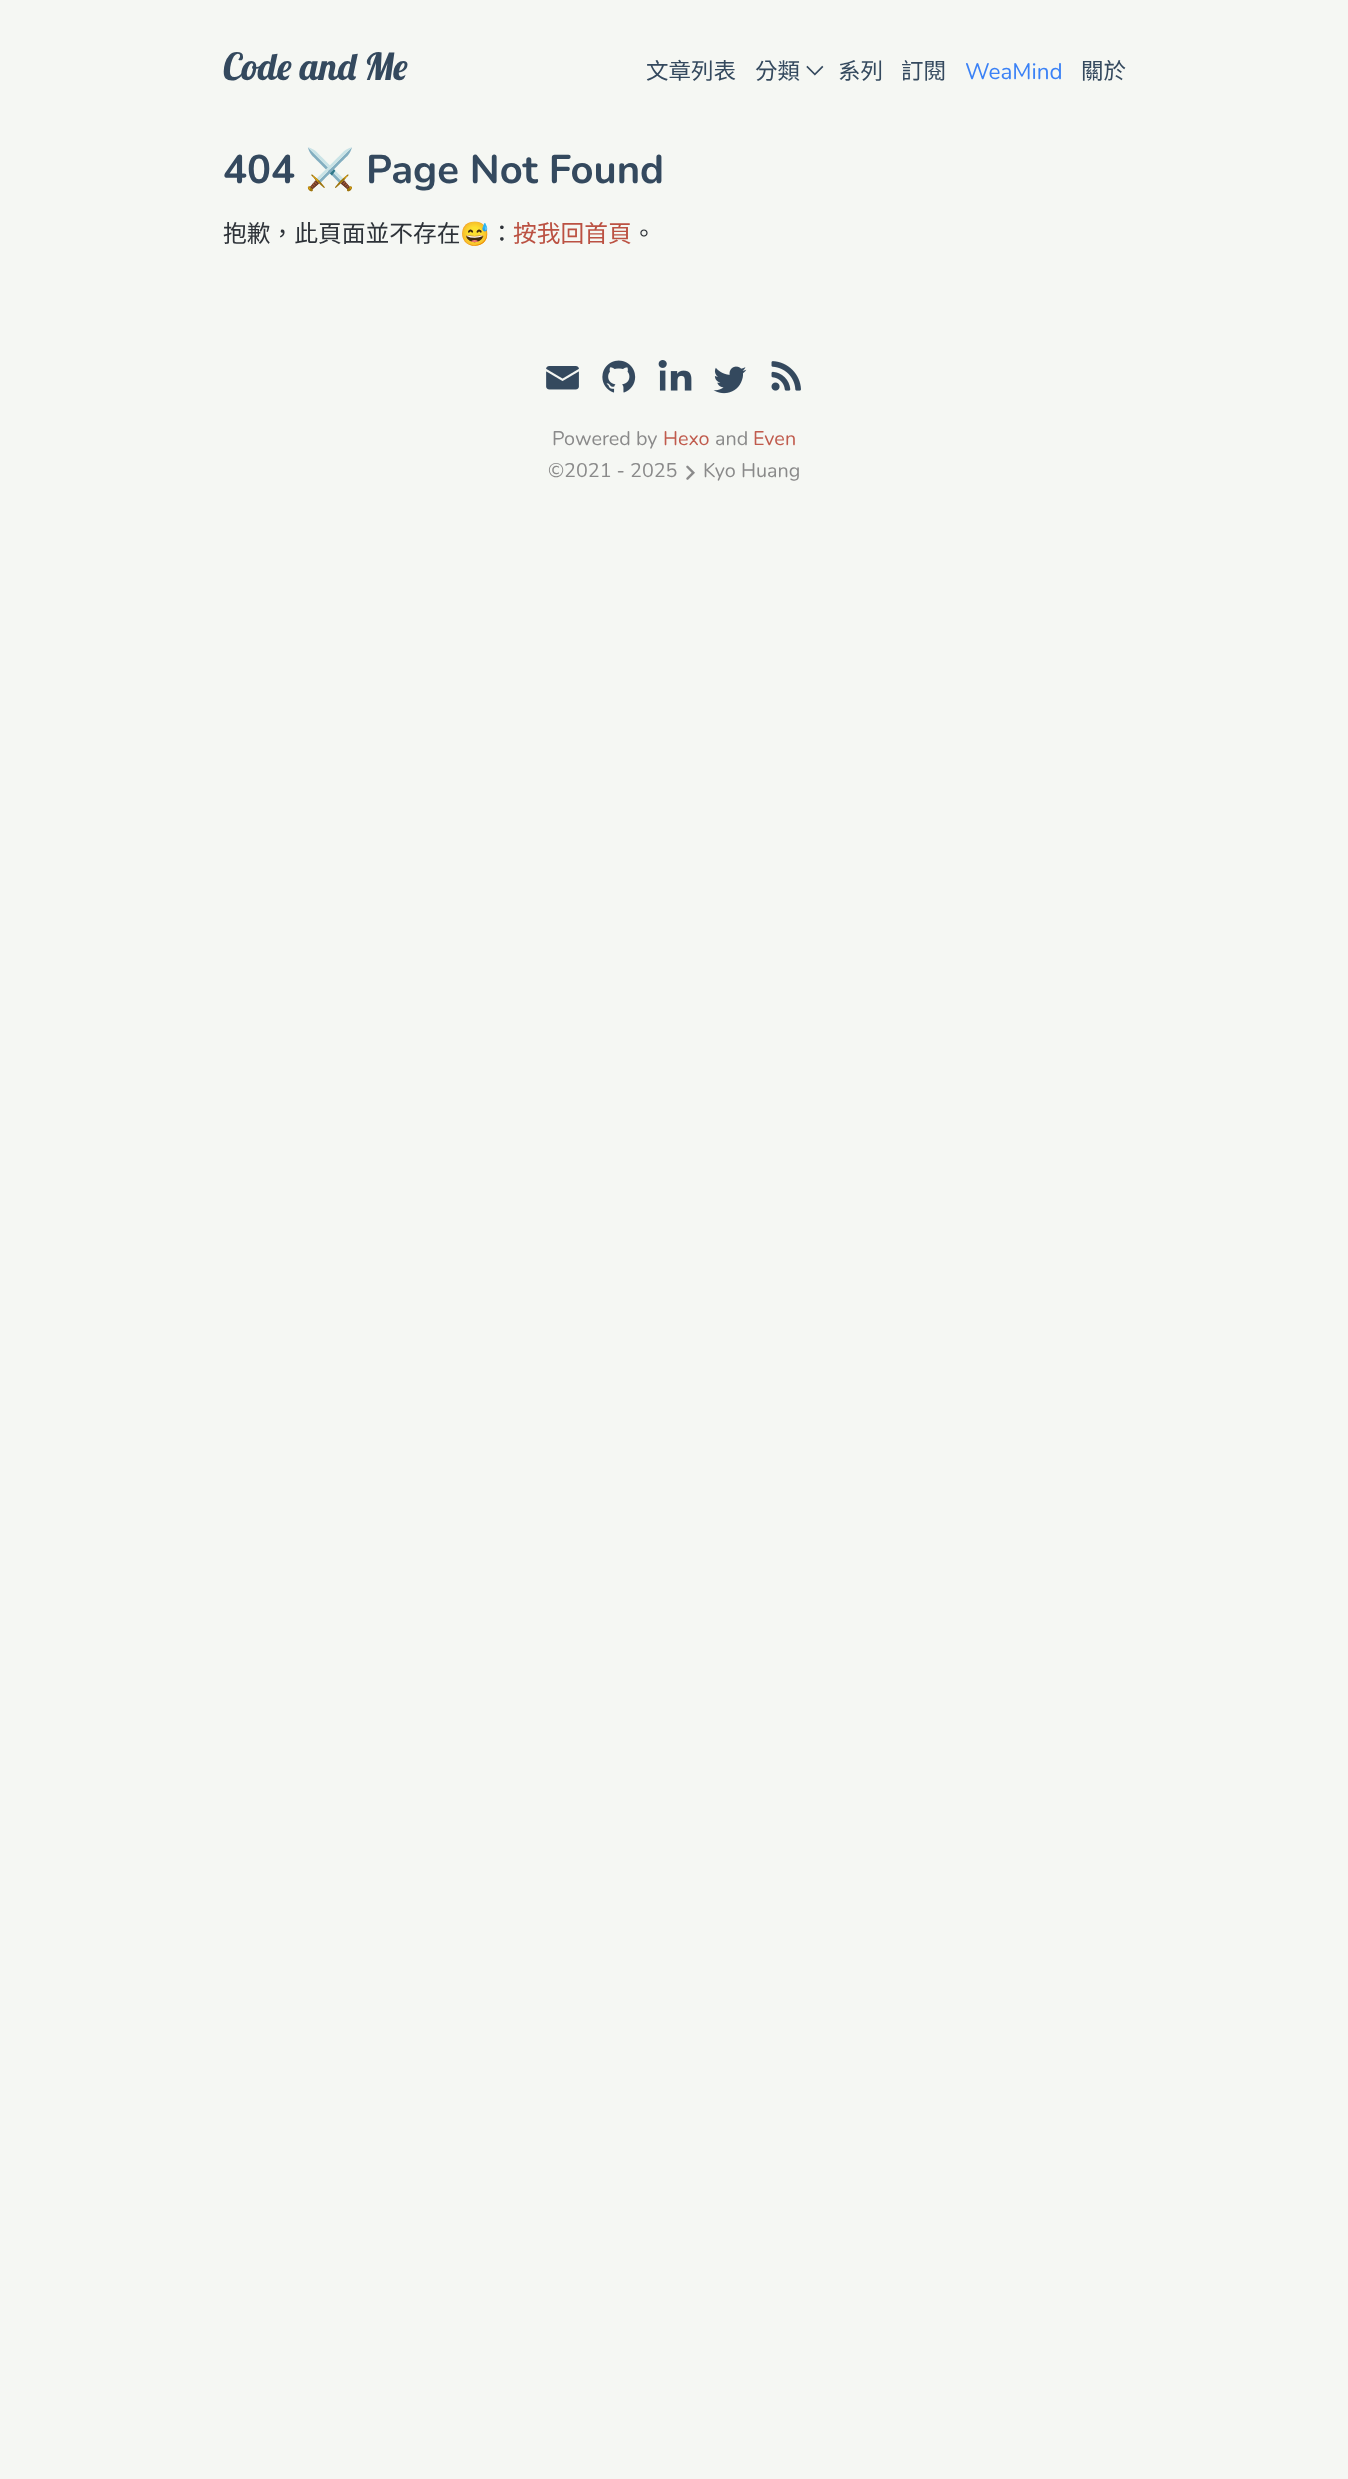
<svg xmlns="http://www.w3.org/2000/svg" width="1348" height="2479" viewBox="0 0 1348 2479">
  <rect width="100%" height="100%" fill="#f5f7f3"/>
  <text x="223" y="80" font-family="Lobster" font-size="37.5" fill="#34495e">Code and Me</text>
  <text x="646" y="79" font-family="Noto Sans CJK TC" font-size="22.5" fill="#34495e">文章列表</text>
  <text x="755" y="79" font-family="Noto Sans CJK TC" font-size="22.5" fill="#34495e">分類</text>
  <text x="806" y="75" font-family="FreeSerif" font-size="22.5" font-weight="bold" fill="#34495e">⌵</text>
  <text x="838" y="79" font-family="Noto Sans CJK TC" font-size="22.5" fill="#34495e">系列</text>
  <text x="901" y="79" font-family="Noto Sans CJK TC" font-size="22.5" fill="#34495e">訂閱</text>
  <text x="965" y="79" font-family="Nunito" font-size="22.5" fill="#3b82f6">WeaMind</text>
  <text x="1081" y="79" font-family="Noto Sans CJK TC" font-size="22.5" fill="#34495e">關於</text>
  <text x="223" y="183" font-family="Nunito" font-size="40" font-weight="bold" fill="#34495e">404</text>
  <text x="305" y="183" font-family="Noto Color Emoji" font-size="40" font-weight="bold" fill="#34495e">⚔️</text>
  <text x="366" y="183" font-family="Nunito" font-size="40" font-weight="bold" fill="#34495e">Page Not Found</text>
  <text x="223" y="242" font-family="Noto Sans CJK TC" font-size="23.75" fill="#2e3339">抱歉，此頁面並不存在</text>
  <text x="460" y="242" font-family="Noto Color Emoji" font-size="23.75" fill="#2e3339">😅</text>
  <text x="490" y="242" font-family="Noto Sans CJK TC" font-size="23.75" fill="#2e3339">：</text>
  <text x="513" y="242" font-family="Noto Sans CJK TC" font-size="23.75" fill="#bb5142">按我回首頁</text>
  <text x="632" y="242" font-family="Noto Sans CJK TC" font-size="23.75" fill="#2e3339">。</text>
  <image x="546" y="366" width="33" height="24" href="img1.png"/>
  <image x="602" y="360" width="34" height="33" href="img2.png"/>
  <image x="658" y="360" width="34" height="31" href="img3.png"/>
  <image x="713" y="366" width="34" height="28" href="img4.png"/>
  <image x="771" y="361" width="30" height="30" href="img5.png"/>
  <text x="552" y="445" font-family="Nunito" font-size="19.75" fill="#8a8a8a">Powered by</text>
  <text x="663" y="445" font-family="Nunito" font-size="19.75" fill="#c05b4d">Hexo</text>
  <text x="715" y="445" font-family="Nunito" font-size="19.75" fill="#8a8a8a">and</text>
  <text x="753" y="445" font-family="Nunito" font-size="19.75" fill="#c05b4d">Even</text>
  <text x="548" y="477" font-family="Nunito" font-size="19.75" fill="#8a8a8a">©2021 - 2025</text>
  <image x="686" y="465" width="9" height="15" href="img6.png"/>
  <text x="703" y="477" font-family="Nunito" font-size="19.75" fill="#8a8a8a">Kyo Huang</text>
</svg>
